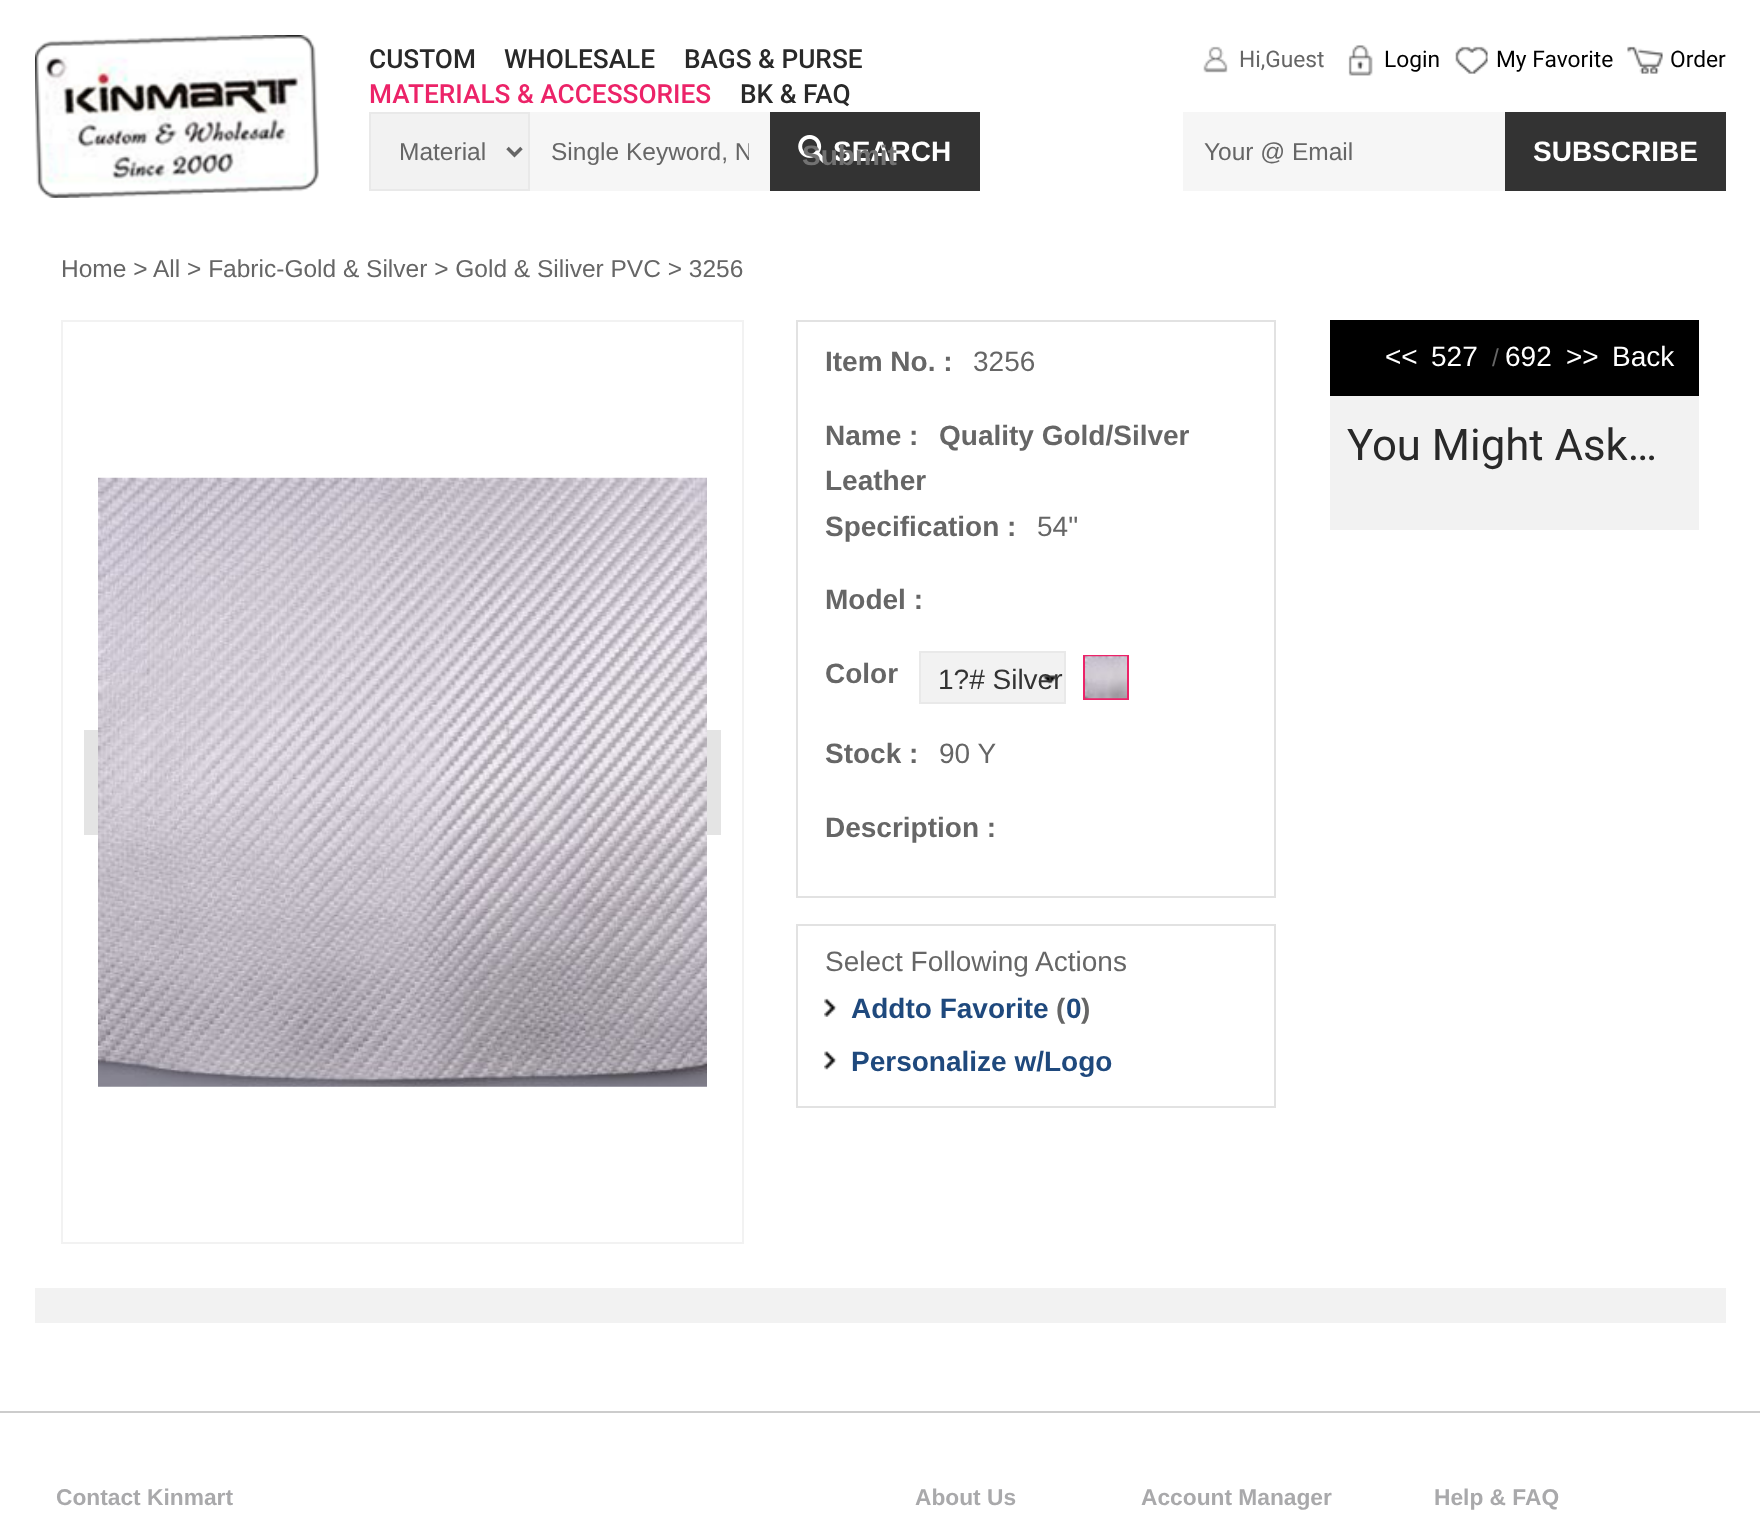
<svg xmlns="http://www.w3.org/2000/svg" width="1760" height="1527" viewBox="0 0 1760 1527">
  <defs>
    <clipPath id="clip1"><rect x="551" y="138" width="198" height="28"/></clipPath>
  </defs>
  <rect width="100%" height="100%" fill="#ffffff"/>
  <image x="35" y="35" width="284" height="163" href="img1.png"/>
  <text x="369" y="68" font-family="Roboto" font-size="26.25" font-weight="500" fill="#292929">CUSTOM</text>
  <text x="504" y="68" font-family="Roboto" font-size="26.25" font-weight="500" fill="#292929">WHOLESALE</text>
  <text x="684" y="68" font-family="Roboto" font-size="26.25" font-weight="500" fill="#292929">BAGS &amp; PURSE</text>
  <text x="369" y="103" font-family="Roboto" font-size="26.25" font-weight="500" fill="#ec2368">MATERIALS &amp; ACCESSORIES</text>
  <text x="740" y="103" font-family="Roboto" font-size="26.25" font-weight="500" fill="#292929">BK &amp; FAQ</text>
  <image x="1203" y="46" width="25" height="27" href="img2.png"/>
  <text x="1239" y="67" font-family="Roboto" font-size="22.75" fill="#666666">Hi,Guest</text>
  <image x="1348" y="45" width="25" height="31" href="img3.png"/>
  <text x="1384" y="67" font-family="Roboto" font-size="22.75" fill="#000000">Login</text>
  <image x="1455" y="46" width="33" height="28" href="img4.png"/>
  <text x="1496" y="67" font-family="Roboto" font-size="22.75" fill="#000000">My Favorite</text>
  <image x="1627" y="46" width="36" height="28" href="img5.png"/>
  <text x="1670" y="67" font-family="Roboto" font-size="22.75" fill="#000000">Order</text>
  <rect x="370" y="113" width="159" height="77" fill="#f2f2f2" stroke="#e9e9e9" stroke-width="2"/>
  <path d="M507.5 148L514.5 155L521.5 148" fill="none" stroke="#666666" stroke-width="3.5"/>
  <text x="399" y="160" font-family="Liberation Sans" font-size="24.5" fill="#666666">Material</text>
  <rect x="530" y="112" width="240" height="79" fill="#f6f6f6"/>
  <g clip-path="url(#clip1)">
    <text x="551" y="160" font-family="Liberation Sans" font-size="24.5" fill="#666666">Single Keyword, N</text>
  </g>
  <rect x="770" y="112" width="210" height="79" fill="#333333"/>
  <image x="798" y="135" width="29" height="28" href="img6.png"/>
  <text x="833" y="161" font-family="Liberation Sans" font-size="28" font-weight="bold" fill="#ffffff">SEARCH</text>
  <text x="802" y="165" font-family="Liberation Sans" font-size="28" font-weight="bold" fill="#727272">Submit</text>
  <rect x="1183" y="112" width="322" height="79" fill="#f6f6f6"/>
  <text x="1204" y="160" font-family="Liberation Sans" font-size="24.5" fill="#666666">Your @ Email</text>
  <rect x="1505" y="112" width="221" height="79" fill="#333333"/>
  <text x="1533" y="161" font-family="Liberation Sans" font-size="28" font-weight="bold" fill="#ffffff">SUBSCRIBE</text>
  <text x="61" y="277" font-family="Liberation Sans" font-size="24.5" fill="#666666">Home &gt;</text>
  <text x="153" y="277" font-family="Liberation Sans" font-size="24.5" fill="#666666">All &gt; Fabric-Gold &amp; Silver &gt; Gold &amp; Siliver PVC &gt; 3256</text>
  <rect x="62" y="321" width="681" height="922" fill="none" stroke="#f2f2f2" stroke-width="2"/>
  <rect x="84" y="730" width="14" height="105" fill="#e4e4e4"/>
  <image x="98" y="477" width="609" height="610" href="img7.png"/>
  <rect x="707" y="730" width="14" height="105" fill="#e4e4e4"/>
  <rect x="797" y="321" width="478" height="576" fill="none" stroke="#e2e2e2" stroke-width="2"/>
  <text x="825" y="371" font-family="Liberation Sans" font-size="28" font-weight="bold" fill="#666666">Item No. :</text>
  <text x="973" y="371" font-family="Liberation Sans" font-size="28" fill="#666666">3256</text>
  <text x="939" y="445" font-family="Liberation Sans" font-size="28" font-weight="bold" fill="#666666">Quality Gold/Silver</text>
  <text x="825" y="490" font-family="Liberation Sans" font-size="28" font-weight="bold" fill="#666666">Leather</text>
  <text x="825" y="445" font-family="Liberation Sans" font-size="28" font-weight="bold" fill="#666666">Name :</text>
  <text x="825" y="536" font-family="Liberation Sans" font-size="28" font-weight="bold" fill="#666666">Specification :</text>
  <text x="1037" y="536" font-family="Liberation Sans" font-size="28" fill="#666666">54"</text>
  <text x="825" y="609" font-family="Liberation Sans" font-size="28" font-weight="bold" fill="#666666">Model :</text>
  <text x="825" y="683" font-family="Liberation Sans" font-size="28" font-weight="bold" fill="#666666">Color</text>
  <rect x="921" y="653" width="143" height="49" fill="#f2f2f2"/>
  <image x="1042" y="675" width="16" height="10" href="img8.png"/>
  <rect x="920" y="652" width="145" height="51" fill="none" stroke="#e9e9e9" stroke-width="2"/>
  <text x="938" y="689" font-family="Liberation Sans" font-size="28" fill="#333333">1?# Silver</text>
  <rect x="1084" y="656" width="44" height="43" fill="none" stroke="#ec2368" stroke-width="2"/>
  <image x="1085" y="656" width="42" height="43" href="img9.png"/>
  <text x="825" y="763" font-family="Liberation Sans" font-size="28" font-weight="bold" fill="#666666">Stock :</text>
  <text x="939" y="763" font-family="Liberation Sans" font-size="28" fill="#666666">90 Y</text>
  <text x="825" y="837" font-family="Liberation Sans" font-size="28" font-weight="bold" fill="#666666">Description :</text>
  <rect x="797" y="925" width="478" height="182" fill="none" stroke="#e2e2e2" stroke-width="2"/>
  <text x="825" y="971" font-family="Liberation Sans" font-size="28" fill="#666666">Select Following Actions</text>
  <image x="824" y="998" width="13" height="19" href="img10.png"/>
  <text x="851" y="1018" font-family="Liberation Sans" font-size="28" font-weight="bold" fill="#1f497d">Addto Favorite</text>
  <text x="1056" y="1018" font-family="Liberation Sans" font-size="28" font-weight="bold" fill="#666666">(</text>
  <text x="1066" y="1018" font-family="Liberation Sans" font-size="28" font-weight="bold" fill="#1f497d">0</text>
  <text x="1081" y="1018" font-family="Liberation Sans" font-size="28" font-weight="bold" fill="#666666">)</text>
  <image x="824" y="1051" width="13" height="19" href="img11.png"/>
  <text x="851" y="1071" font-family="Liberation Sans" font-size="28" font-weight="bold" fill="#1f497d">Personalize w/Logo</text>
  <rect x="1330" y="320" width="369" height="76" fill="#000000"/>
  <text x="1385" y="366" font-family="Liberation Sans" font-size="28" fill="#ffffff">&lt;&lt;</text>
  <text x="1431" y="366" font-family="Liberation Sans" font-size="28" fill="#ffffff">527</text>
  <text x="1492" y="366" font-family="Liberation Sans" font-size="24.5" fill="#666666">/</text>
  <text x="1505" y="366" font-family="Liberation Sans" font-size="28" fill="#ffffff">692</text>
  <text x="1566" y="366" font-family="Liberation Sans" font-size="28" fill="#ffffff">&gt;&gt;</text>
  <text x="1612" y="366" font-family="Liberation Sans" font-size="28" fill="#ffffff">Back</text>
  <rect x="1330" y="396" width="369" height="134" fill="#f2f2f2"/>
  <text x="1347" y="460" font-family="Roboto" font-size="43.75" fill="#292929">You Might Ask…</text>
  <rect x="35" y="1288" width="1691" height="35" fill="#f2f2f2"/>
  <rect x="0" y="1411" width="1760" height="2" fill="#cccccc"/>
  <text x="56" y="1505" font-family="Liberation Sans" font-size="22.75" font-weight="bold" fill="#a9a9ab">Contact Kinmart</text>
  <text x="915" y="1505" font-family="Liberation Sans" font-size="22.75" font-weight="bold" fill="#a9a9ab">About Us</text>
  <text x="1141" y="1505" font-family="Liberation Sans" font-size="22.75" font-weight="bold" fill="#a9a9ab">Account Manager</text>
  <text x="1434" y="1505" font-family="Liberation Sans" font-size="22.75" font-weight="bold" fill="#a9a9ab">Help &amp; FAQ</text>
</svg>
